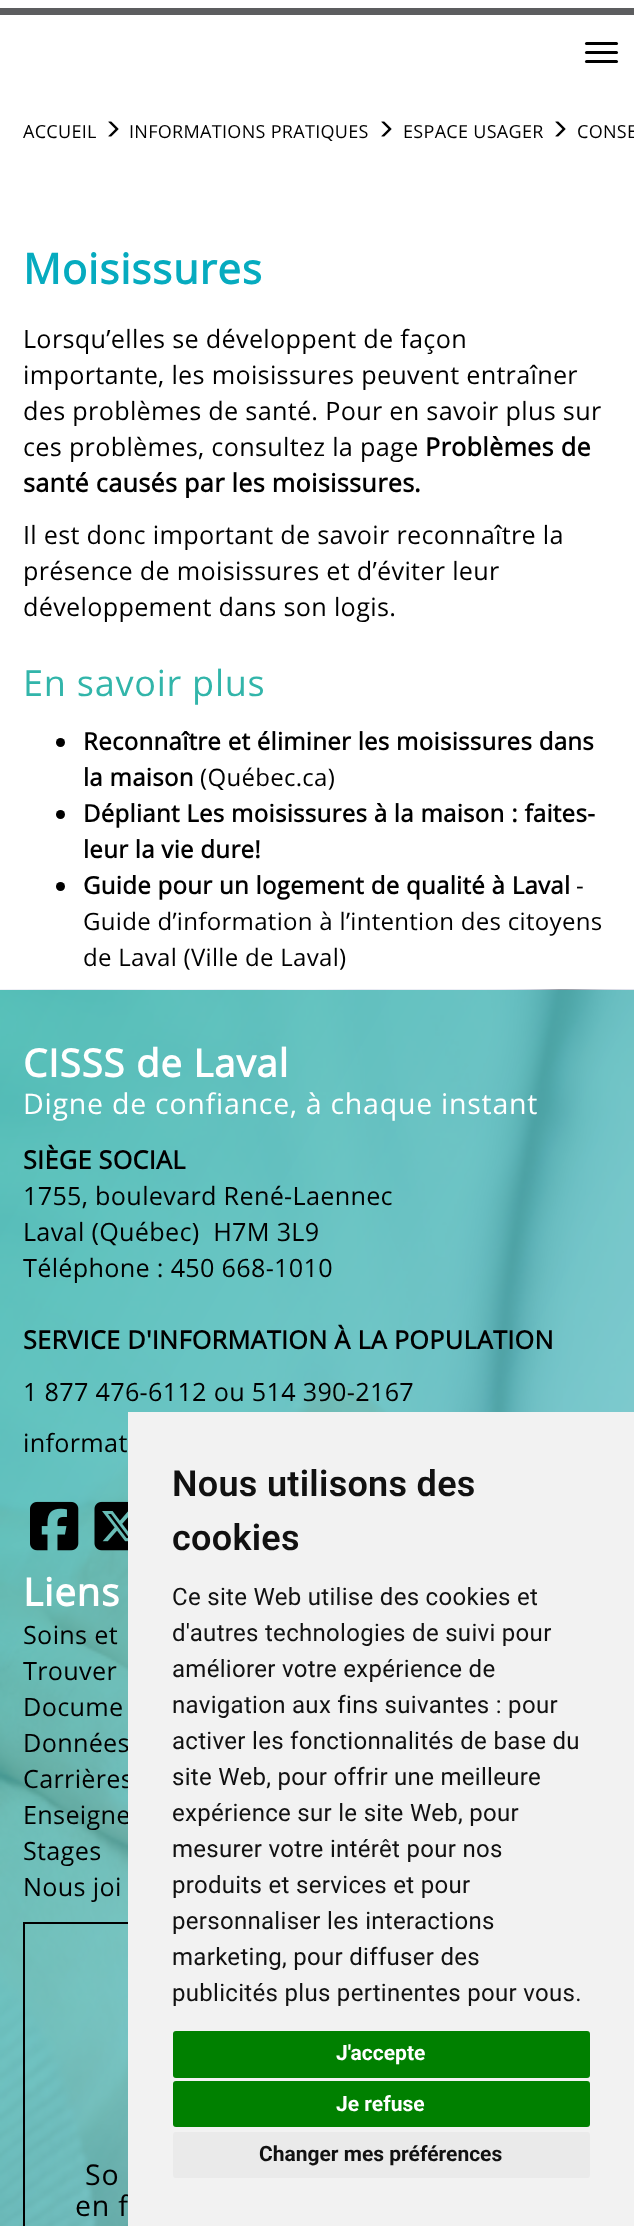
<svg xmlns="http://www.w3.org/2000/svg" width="634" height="2226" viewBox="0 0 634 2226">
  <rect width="100%" height="100%" fill="#ffffff"/>
  <rect x="0" y="8" width="634" height="7" fill="#5c5d5f"/>
  <rect x="585" y="42" width="33" height="3" rx="1.5" fill="#000000"/>
  <rect x="585" y="51" width="33" height="3" rx="1.5" fill="#000000"/>
  <rect x="585" y="60" width="33" height="3" rx="1.5" fill="#000000"/>
  <text x="23" y="138" font-family="Open Sans" font-size="18" letter-spacing="0.3" fill="#000000">ACCUEIL</text>
  <image x="108" y="121" width="11" height="16" href="img1.png"/>
  <text x="129" y="138" font-family="Open Sans" font-size="18" letter-spacing="0.3" fill="#000000">INFORMATIONS PRATIQUES</text>
  <image x="381" y="121" width="11" height="16" href="img1.png"/>
  <text x="403" y="138" font-family="Open Sans" font-size="18" letter-spacing="0.3" fill="#000000">ESPACE USAGER</text>
  <image x="555" y="121" width="11" height="16" href="img1.png"/>
  <text x="577" y="138" font-family="Open Sans" font-size="18" letter-spacing="0.3" fill="#000000">CONSE</text>
  <text x="23" y="284" font-family="Open Sans" font-size="42" font-weight="bold" letter-spacing="0.75" fill="#06abbf">Moisissures</text>
  <text x="23" y="348" font-family="Open Sans" font-size="25.2" letter-spacing="0.3" fill="#000000">Lorsqu’elles se développent de façon</text>
  <text x="23" y="384" font-family="Open Sans" font-size="25.2" letter-spacing="0.3" fill="#000000">importante, les moisissures peuvent entraîner</text>
  <text x="23" y="420" font-family="Open Sans" font-size="25.2" letter-spacing="0.3" fill="#000000">des problèmes de santé. Pour en savoir plus sur</text>
  <text x="23" y="456" font-family="Open Sans" font-size="25.2" letter-spacing="0.3" fill="#000000">ces problèmes, consultez la page</text>
  <text x="425" y="456" font-family="Open Sans" font-size="25.2" font-weight="bold" letter-spacing="0.3" fill="#000000">Problèmes de</text>
  <text x="23" y="492" font-family="Open Sans" font-size="25.2" font-weight="bold" letter-spacing="0.3" fill="#000000">santé causés par les moisissures</text>
  <text x="414" y="492" font-family="Open Sans" font-size="25.2" font-weight="bold" letter-spacing="0.3" fill="#000000">.</text>
  <text x="23" y="544" font-family="Open Sans" font-size="25.2" letter-spacing="0.3" fill="#000000">Il est donc important de savoir reconnaître la</text>
  <text x="23" y="580" font-family="Open Sans" font-size="25.2" letter-spacing="0.3" fill="#000000">présence de moisissures et d’éviter leur</text>
  <text x="23" y="616" font-family="Open Sans" font-size="25.2" letter-spacing="0.3" fill="#000000">développement dans son logis.</text>
  <text x="23" y="696" font-family="Open Sans" font-size="36" letter-spacing="0.75" fill="#32b5aa">En savoir plus</text>
  <circle cx="60.5" cy="742.5" r="4.5" fill="#000000"/>
  <text x="83" y="750" font-family="Open Sans" font-size="24" font-weight="bold" letter-spacing="0.3" fill="#000000">Reconnaître et éliminer les moisissures dans</text>
  <text x="83" y="786" font-family="Open Sans" font-size="24" font-weight="bold" letter-spacing="0.3" fill="#000000">la maison</text>
  <text x="200" y="786" font-family="Open Sans" font-size="24" letter-spacing="0.3" fill="#000000">(Québec.ca)</text>
  <circle cx="60.5" cy="814.5" r="4.5" fill="#000000"/>
  <text x="83" y="822" font-family="Open Sans" font-size="24" font-weight="bold" letter-spacing="0.3" fill="#000000">Dépliant Les moisissures à la maison : faites-</text>
  <text x="83" y="858" font-family="Open Sans" font-size="24" font-weight="bold" letter-spacing="0.3" fill="#000000">leur la vie dure!</text>
  <circle cx="60.5" cy="886.5" r="4.5" fill="#000000"/>
  <text x="83" y="894" font-family="Open Sans" font-size="24" font-weight="bold" letter-spacing="0.3" fill="#000000">Guide pour un logement de qualité à Laval</text>
  <text x="576" y="894" font-family="Open Sans" font-size="24" letter-spacing="0.3" fill="#000000">-</text>
  <text x="83" y="930" font-family="Open Sans" font-size="24" letter-spacing="0.3" fill="#000000">Guide d’information à l’intention des citoyens</text>
  <text x="83" y="966" font-family="Open Sans" font-size="24" letter-spacing="0.3" fill="#000000">de Laval (Ville de Laval)</text>
  <image x="0" y="989" width="634" height="1237" href="img2.png"/>
  <text x="23" y="1077" font-family="Open Sans" font-size="38.5" font-weight="bold" letter-spacing="0.75" fill="#ffffff">CISSS de Laval</text>
  <text x="23" y="1114" font-family="Open Sans" font-size="28.5" letter-spacing="0.75" fill="#ffffff">Digne de confiance, à chaque instant</text>
  <text x="23" y="1169" font-family="Open Sans" font-size="25.2" font-weight="bold" letter-spacing="0.3" fill="#000000">SIÈGE SOCIAL</text>
  <text x="23" y="1205" font-family="Open Sans" font-size="25.2" letter-spacing="0.3" fill="#000000">1755, boulevard René-Laennec</text>
  <text x="23" y="1241" font-family="Open Sans" font-size="25.2" letter-spacing="0.3" fill="#000000" xml:space="preserve">Laval (Québec)  H7M 3L9</text>
  <text x="23" y="1277" font-family="Open Sans" font-size="25.2" letter-spacing="0.3" fill="#000000">Téléphone : 450 668-1010</text>
  <text x="23" y="1349" font-family="Open Sans" font-size="25.2" font-weight="bold" letter-spacing="0.3" fill="#000000">SERVICE D'INFORMATION À LA POPULATION</text>
  <text x="23" y="1401" font-family="Open Sans" font-size="25.2" letter-spacing="0.3" fill="#000000">1 877 476-6112 ou 514 390-2167</text>
  <text x="23" y="1452" font-family="Open Sans" font-size="25.2" letter-spacing="0.3" fill="#000000">informat</text>
  <image x="30" y="1501" width="49" height="50" href="img3.png"/>
  <image x="94" y="1501" width="34" height="50" href="img4.png"/>
  <text x="23" y="1606" font-family="Open Sans" font-size="38.5" font-weight="bold" letter-spacing="0.75" fill="#ffffff">Liens</text>
  <text x="23" y="1644" font-family="Open Sans" font-size="25.2" letter-spacing="0.3" fill="#000000">Soins et</text>
  <text x="23" y="1680" font-family="Open Sans" font-size="25.2" letter-spacing="0.3" fill="#000000">Trouver</text>
  <text x="23" y="1716" font-family="Open Sans" font-size="25.2" letter-spacing="0.3" fill="#000000">Docume</text>
  <text x="23" y="1752" font-family="Open Sans" font-size="25.2" letter-spacing="0.3" fill="#000000">Données</text>
  <text x="23" y="1788" font-family="Open Sans" font-size="25.2" letter-spacing="0.3" fill="#000000">Carrières</text>
  <text x="23" y="1824" font-family="Open Sans" font-size="25.2" letter-spacing="0.3" fill="#000000">Enseigne</text>
  <text x="23" y="1860" font-family="Open Sans" font-size="25.2" letter-spacing="0.3" fill="#000000">Stages</text>
  <text x="23" y="1896" font-family="Open Sans" font-size="25.2" letter-spacing="0.3" fill="#000000">Nous joi</text>
  <rect x="24" y="1923" width="587" height="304" fill="none" stroke="#000000" stroke-width="2"/>
  <text x="85" y="2185" font-family="Open Sans" font-size="28.5" letter-spacing="0.75" fill="#000000">So</text>
  <text x="75" y="2216" font-family="Open Sans" font-size="28.5" letter-spacing="0.75" fill="#000000">en f</text>
  <rect x="128" y="1412" width="506" height="814" fill="#f2f2f2"/>
  <text x="172" y="1496" font-family="Roboto" font-size="36" font-weight="600" letter-spacing="0.3" fill="#111111">Nous utilisons des</text>
  <text x="172" y="1550" font-family="Roboto" font-size="36" font-weight="600" letter-spacing="0.3" fill="#111111">cookies</text>
  <text x="172" y="1605" font-family="Roboto" font-size="24" letter-spacing="0.3" fill="#111111">Ce site Web utilise des cookies et</text>
  <text x="172" y="1641" font-family="Roboto" font-size="24" letter-spacing="0.3" fill="#111111">d'autres technologies de suivi pour</text>
  <text x="172" y="1677" font-family="Roboto" font-size="24" letter-spacing="0.3" fill="#111111">améliorer votre expérience de</text>
  <text x="172" y="1713" font-family="Roboto" font-size="24" letter-spacing="0.3" fill="#111111">navigation aux fins suivantes : pour</text>
  <text x="172" y="1749" font-family="Roboto" font-size="24" letter-spacing="0.3" fill="#111111">activer les fonctionnalités de base du</text>
  <text x="172" y="1785" font-family="Roboto" font-size="24" letter-spacing="0.3" fill="#111111">site Web, pour offrir une meilleure</text>
  <text x="172" y="1821" font-family="Roboto" font-size="24" letter-spacing="0.3" fill="#111111">expérience sur le site Web, pour</text>
  <text x="172" y="1857" font-family="Roboto" font-size="24" letter-spacing="0.3" fill="#111111">mesurer votre intérêt pour nos</text>
  <text x="172" y="1893" font-family="Roboto" font-size="24" letter-spacing="0.3" fill="#111111">produits et services et pour</text>
  <text x="172" y="1929" font-family="Roboto" font-size="24" letter-spacing="0.3" fill="#111111">personnaliser les interactions</text>
  <text x="172" y="1965" font-family="Roboto" font-size="24" letter-spacing="0.3" fill="#111111">marketing, pour diffuser des</text>
  <text x="172" y="2001" font-family="Roboto" font-size="24" letter-spacing="0.3" fill="#111111">publicités plus pertinentes pour vous.</text>
  <rect x="173" y="2031" width="417" height="47" rx="3" fill="#008000"/>
  <text x="336" y="2060" font-family="Roboto" font-size="21" font-weight="bold" fill="#ffffff">J'accepte</text>
  <rect x="173" y="2081" width="417" height="46" rx="3" fill="#008000"/>
  <text x="336" y="2111" font-family="Roboto" font-size="21" font-weight="bold" fill="#ffffff">Je refuse</text>
  <rect x="173" y="2132" width="417" height="46" rx="3" fill="#eaeaea"/>
  <text x="259" y="2161" font-family="Roboto" font-size="21" font-weight="bold" fill="#111111">Changer mes préférences</text>
</svg>
